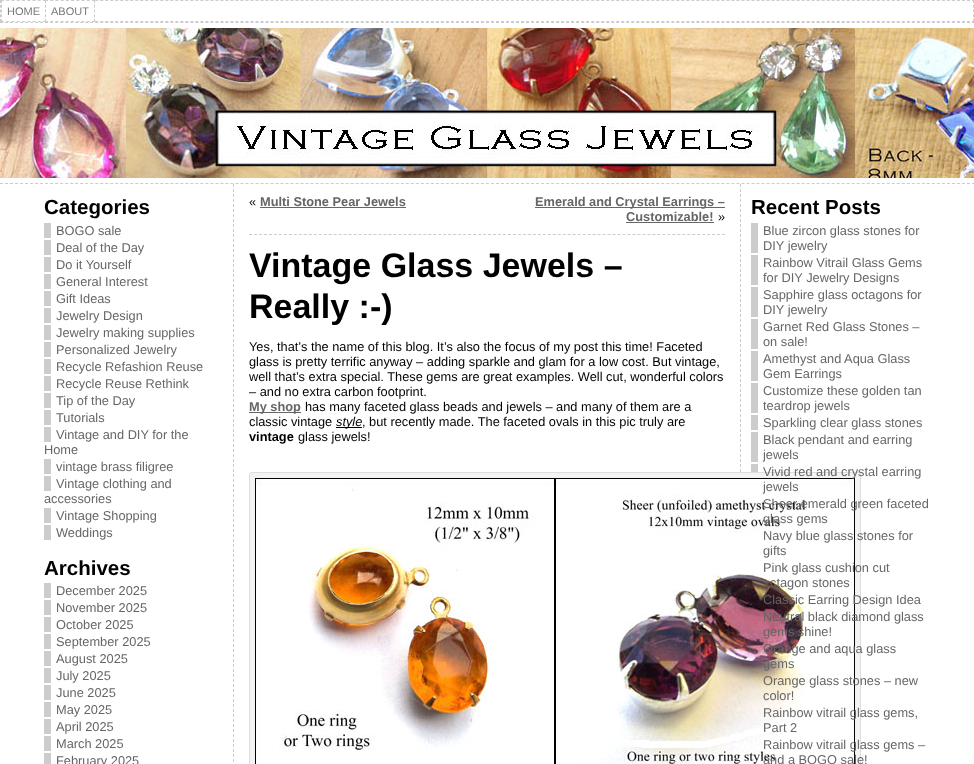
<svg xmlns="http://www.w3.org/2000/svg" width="974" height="764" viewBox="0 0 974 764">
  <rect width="100%" height="100%" fill="#ffffff"/>
  <path d="M0 .5H974" fill="none" stroke="#cccccc" stroke-dasharray="3 2.01"/>
  <path d="M973.5 0V22" fill="none" stroke="#cccccc" stroke-dasharray="3 1.75"/>
  <path d="M0 21.5H974" fill="none" stroke="#cccccc" stroke-dasharray="3 2.01"/>
  <path d="M.5 0V22" fill="none" stroke="#cccccc" stroke-dasharray="3 1.75"/>
  <rect x="1" y="0" width="43" height="22" fill="#ffffff"/>
  <path d="M1 .5H46M1 21.5H46" fill="none" stroke="#cccccc" stroke-dasharray="3 2.25"/>
  <path d="M1.5 0V22" fill="none" stroke="#cccccc" stroke-dasharray="3 1.75"/>
  <text x="7" y="15" font-family="Liberation Sans" font-size="11" fill="#777777">HOME</text>
  <rect x="45" y="0" width="49" height="22" fill="#ffffff"/>
  <path d="M45 .5H95" fill="none" stroke="#cccccc" stroke-dasharray="3 2.22"/>
  <path d="M94.5 0V22" fill="none" stroke="#cccccc" stroke-dasharray="3 1.75"/>
  <path d="M45 21.5H95" fill="none" stroke="#cccccc" stroke-dasharray="3 2.22"/>
  <path d="M45.5 0V22" fill="none" stroke="#cccccc" stroke-dasharray="3 1.75"/>
  <text x="51" y="15" font-family="Liberation Sans" font-size="11" fill="#777777">ABOUT</text>
  <path d="M0 22.5H974" fill="none" stroke="#cccccc" stroke-dasharray="3 2.01"/>
  <image x="0" y="28" width="974" height="150" href="img1.png"/>
  <path d="M0 183.5H974" fill="none" stroke="#cccccc" stroke-dasharray="3 2.01"/>
  <path d="M233.5 184V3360" fill="none" stroke="#cccccc" stroke-dasharray="3 2"/>
  <text x="44" y="214" font-family="Liberation Sans" font-size="20.5" font-weight="bold" fill="#000000">Categories</text>
  <text x="56" y="235" font-family="Liberation Sans" font-size="12.8" fill="#666666">BOGO sale</text>
  <rect x="44" y="223" width="7" height="15" fill="#cccccc"/>
  <text x="56" y="252" font-family="Liberation Sans" font-size="12.8" fill="#666666">Deal of the Day</text>
  <rect x="44" y="240" width="7" height="15" fill="#cccccc"/>
  <text x="56" y="269" font-family="Liberation Sans" font-size="12.8" fill="#666666">Do it Yourself</text>
  <rect x="44" y="257" width="7" height="15" fill="#cccccc"/>
  <text x="56" y="286" font-family="Liberation Sans" font-size="12.8" fill="#666666">General Interest</text>
  <rect x="44" y="274" width="7" height="15" fill="#cccccc"/>
  <text x="56" y="303" font-family="Liberation Sans" font-size="12.8" fill="#666666">Gift Ideas</text>
  <rect x="44" y="291" width="7" height="15" fill="#cccccc"/>
  <text x="56" y="320" font-family="Liberation Sans" font-size="12.8" fill="#666666">Jewelry Design</text>
  <rect x="44" y="308" width="7" height="15" fill="#cccccc"/>
  <text x="56" y="337" font-family="Liberation Sans" font-size="12.8" fill="#666666">Jewelry making supplies</text>
  <rect x="44" y="325" width="7" height="15" fill="#cccccc"/>
  <text x="56" y="354" font-family="Liberation Sans" font-size="12.8" fill="#666666">Personalized Jewelry</text>
  <rect x="44" y="342" width="7" height="15" fill="#cccccc"/>
  <text x="56" y="371" font-family="Liberation Sans" font-size="12.8" fill="#666666">Recycle Refashion Reuse</text>
  <rect x="44" y="359" width="7" height="15" fill="#cccccc"/>
  <text x="56" y="388" font-family="Liberation Sans" font-size="12.8" fill="#666666">Recycle Reuse Rethink</text>
  <rect x="44" y="376" width="7" height="15" fill="#cccccc"/>
  <text x="56" y="405" font-family="Liberation Sans" font-size="12.8" fill="#666666">Tip of the Day</text>
  <rect x="44" y="393" width="7" height="15" fill="#cccccc"/>
  <text x="56" y="422" font-family="Liberation Sans" font-size="12.8" fill="#666666">Tutorials</text>
  <rect x="44" y="410" width="7" height="15" fill="#cccccc"/>
  <text x="56" y="439" font-family="Liberation Sans" font-size="12.8" fill="#666666">Vintage and DIY for the</text>
  <rect x="44" y="427" width="7" height="15" fill="#cccccc"/>
  <text x="44" y="454" font-family="Liberation Sans" font-size="12.8" fill="#666666">Home</text>
  <text x="56" y="471" font-family="Liberation Sans" font-size="12.8" fill="#666666">vintage brass filigree</text>
  <rect x="44" y="459" width="7" height="15" fill="#cccccc"/>
  <text x="56" y="488" font-family="Liberation Sans" font-size="12.8" fill="#666666">Vintage clothing and</text>
  <rect x="44" y="476" width="7" height="15" fill="#cccccc"/>
  <text x="44" y="503" font-family="Liberation Sans" font-size="12.8" fill="#666666">accessories</text>
  <text x="56" y="520" font-family="Liberation Sans" font-size="12.8" fill="#666666">Vintage Shopping</text>
  <rect x="44" y="508" width="7" height="15" fill="#cccccc"/>
  <text x="56" y="537" font-family="Liberation Sans" font-size="12.8" fill="#666666">Weddings</text>
  <rect x="44" y="525" width="7" height="15" fill="#cccccc"/>
  <text x="44" y="575" font-family="Liberation Sans" font-size="20.5" font-weight="bold" fill="#000000">Archives</text>
  <rect x="44" y="583" width="7" height="15" fill="#cccccc"/>
  <text x="56" y="595" font-family="Liberation Sans" font-size="12.8" fill="#666666">December 2025</text>
  <rect x="44" y="600" width="7" height="15" fill="#cccccc"/>
  <text x="56" y="612" font-family="Liberation Sans" font-size="12.8" fill="#666666">November 2025</text>
  <rect x="44" y="617" width="7" height="15" fill="#cccccc"/>
  <text x="56" y="629" font-family="Liberation Sans" font-size="12.8" fill="#666666">October 2025</text>
  <rect x="44" y="634" width="7" height="15" fill="#cccccc"/>
  <text x="56" y="646" font-family="Liberation Sans" font-size="12.8" fill="#666666">September 2025</text>
  <rect x="44" y="651" width="7" height="15" fill="#cccccc"/>
  <text x="56" y="663" font-family="Liberation Sans" font-size="12.8" fill="#666666">August 2025</text>
  <rect x="44" y="668" width="7" height="15" fill="#cccccc"/>
  <text x="56" y="680" font-family="Liberation Sans" font-size="12.8" fill="#666666">July 2025</text>
  <rect x="44" y="685" width="7" height="15" fill="#cccccc"/>
  <text x="56" y="697" font-family="Liberation Sans" font-size="12.8" fill="#666666">June 2025</text>
  <rect x="44" y="702" width="7" height="15" fill="#cccccc"/>
  <text x="56" y="714" font-family="Liberation Sans" font-size="12.8" fill="#666666">May 2025</text>
  <rect x="44" y="719" width="7" height="15" fill="#cccccc"/>
  <text x="56" y="731" font-family="Liberation Sans" font-size="12.8" fill="#666666">April 2025</text>
  <rect x="44" y="736" width="7" height="15" fill="#cccccc"/>
  <text x="56" y="748" font-family="Liberation Sans" font-size="12.8" fill="#666666">March 2025</text>
  <rect x="44" y="753" width="7" height="11" fill="#cccccc"/>
  <text x="56" y="765" font-family="Liberation Sans" font-size="12.8" fill="#666666">February 2025</text>
  <path d="M249 234.5H725" fill="none" stroke="#cccccc" stroke-dasharray="3 1.98"/>
  <text x="249" y="206" font-family="Liberation Sans" font-size="12.8" fill="#000000">«</text>
  <text x="260" y="206" font-family="Liberation Sans" font-size="12.8" font-weight="bold" fill="#666666">Multi Stone Pear Jewels</text>
  <rect x="260" y="207" width="146" height="1" fill="#666666"/>
  <rect x="535" y="207" width="190" height="1" fill="#666666"/>
  <text x="535" y="206" font-family="Liberation Sans" font-size="12.8" font-weight="bold" fill="#666666">Emerald and Crystal Earrings –</text>
  <text x="626" y="221" font-family="Liberation Sans" font-size="12.8" font-weight="bold" fill="#666666">Customizable!</text>
  <rect x="626" y="222" width="88" height="1" fill="#666666"/>
  <text x="718" y="221" font-family="Liberation Sans" font-size="12.8" fill="#000000">»</text>
  <text x="249" y="277" font-family="Liberation Sans" font-size="34" font-weight="bold" fill="#000000">Vintage Glass Jewels –</text>
  <text x="249" y="318" font-family="Liberation Sans" font-size="34" font-weight="bold" fill="#000000">Really :-)</text>
  <text x="249" y="351" font-family="Liberation Sans" font-size="12.8" fill="#000000">Yes, that’s the name of this blog. It’s also the focus of my post this time! Faceted</text>
  <text x="249" y="366" font-family="Liberation Sans" font-size="12.8" fill="#000000">glass is pretty terrific anyway – adding sparkle and glam for a low cost. But vintage,</text>
  <text x="249" y="381" font-family="Liberation Sans" font-size="12.8" fill="#000000">well that’s extra special. These gems are great examples. Well cut, wonderful colors</text>
  <text x="249" y="396" font-family="Liberation Sans" font-size="12.8" fill="#000000">– and no extra carbon footprint.</text>
  <rect x="249" y="412" width="52" height="1" fill="#666666"/>
  <text x="249" y="411" font-family="Liberation Sans" font-size="12.8" font-weight="bold" fill="#666666">My shop</text>
  <text x="305" y="411" font-family="Liberation Sans" font-size="12.8" fill="#000000">has many faceted glass beads and jewels – and many of them are a</text>
  <text x="249" y="426" font-family="Liberation Sans" font-size="12.8" fill="#000000">classic vintage</text>
  <rect x="336" y="427" width="26" height="1" fill="#000000"/>
  <text x="336" y="426" font-family="Liberation Sans" font-size="12.8" font-style="italic" fill="#000000">style</text>
  <text x="362" y="426" font-family="Liberation Sans" font-size="12.8" fill="#000000">, but recently made. The faceted ovals in this pic truly are</text>
  <text x="249" y="441" font-family="Liberation Sans" font-size="12.8" font-weight="bold" fill="#000000">vintage</text>
  <text x="298" y="441" font-family="Liberation Sans" font-size="12.8" fill="#000000">glass jewels!</text>
  <path d="M740.5 184V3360" fill="none" stroke="#cccccc" stroke-dasharray="3 2"/>
  <rect x="249.5" y="472.5" width="611" height="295" rx="2.5" fill="#f3f3f3" stroke="#dddddd"/>
  <image x="255" y="478" width="600" height="286" href="img2.png"/>
  <text x="751" y="214" font-family="Liberation Sans" font-size="20.5" font-weight="bold" fill="#000000">Recent Posts</text>
  <rect x="751" y="223" width="7" height="30" fill="#cccccc"/>
  <text x="763" y="235" font-family="Liberation Sans" font-size="12.8" fill="#666666">Blue zircon glass stones for</text>
  <text x="763" y="250" font-family="Liberation Sans" font-size="12.8" fill="#666666">DIY jewelry</text>
  <rect x="751" y="255" width="7" height="30" fill="#cccccc"/>
  <text x="763" y="267" font-family="Liberation Sans" font-size="12.8" fill="#666666">Rainbow Vitrail Glass Gems</text>
  <text x="763" y="282" font-family="Liberation Sans" font-size="12.8" fill="#666666">for DIY Jewelry Designs</text>
  <rect x="751" y="287" width="7" height="30" fill="#cccccc"/>
  <text x="763" y="299" font-family="Liberation Sans" font-size="12.8" fill="#666666">Sapphire glass octagons for</text>
  <text x="763" y="314" font-family="Liberation Sans" font-size="12.8" fill="#666666">DIY jewelry</text>
  <rect x="751" y="319" width="7" height="30" fill="#cccccc"/>
  <text x="763" y="331" font-family="Liberation Sans" font-size="12.8" fill="#666666">Garnet Red Glass Stones –</text>
  <text x="763" y="346" font-family="Liberation Sans" font-size="12.8" fill="#666666">on sale!</text>
  <rect x="751" y="351" width="7" height="30" fill="#cccccc"/>
  <text x="763" y="363" font-family="Liberation Sans" font-size="12.8" fill="#666666">Amethyst and Aqua Glass</text>
  <text x="763" y="378" font-family="Liberation Sans" font-size="12.8" fill="#666666">Gem Earrings</text>
  <rect x="751" y="383" width="7" height="30" fill="#cccccc"/>
  <text x="763" y="395" font-family="Liberation Sans" font-size="12.8" fill="#666666">Customize these golden tan</text>
  <text x="763" y="410" font-family="Liberation Sans" font-size="12.8" fill="#666666">teardrop jewels</text>
  <rect x="751" y="415" width="7" height="15" fill="#cccccc"/>
  <text x="763" y="427" font-family="Liberation Sans" font-size="12.8" fill="#666666">Sparkling clear glass stones</text>
  <rect x="751" y="432" width="7" height="30" fill="#cccccc"/>
  <text x="763" y="444" font-family="Liberation Sans" font-size="12.8" fill="#666666">Black pendant and earring</text>
  <text x="763" y="459" font-family="Liberation Sans" font-size="12.8" fill="#666666">jewels</text>
  <rect x="751" y="464" width="7" height="8" fill="#cccccc"/>
  <text x="763" y="476" font-family="Liberation Sans" font-size="12.8" fill="#666666">Vivid red and crystal earring</text>
  <text x="763" y="491" font-family="Liberation Sans" font-size="12.8" fill="#666666">jewels</text>
  <text x="763" y="508" font-family="Liberation Sans" font-size="12.8" fill="#666666">Sheer emerald green faceted</text>
  <text x="763" y="523" font-family="Liberation Sans" font-size="12.8" fill="#666666">glass gems</text>
  <text x="763" y="540" font-family="Liberation Sans" font-size="12.8" fill="#666666">Navy blue glass stones for</text>
  <text x="763" y="555" font-family="Liberation Sans" font-size="12.8" fill="#666666">gifts</text>
  <text x="763" y="572" font-family="Liberation Sans" font-size="12.8" fill="#666666">Pink glass cushion cut</text>
  <text x="770" y="587" font-family="Liberation Sans" font-size="12.8" fill="#666666">ctagon stones</text>
  <text x="763" y="604" font-family="Liberation Sans" font-size="12.8" fill="#666666">Classic Earring Design Idea</text>
  <text x="763" y="621" font-family="Liberation Sans" font-size="12.8" fill="#666666">Neutral black diamond glass</text>
  <text x="763" y="636" font-family="Liberation Sans" font-size="12.8" fill="#666666">gems shine!</text>
  <text x="763" y="653" font-family="Liberation Sans" font-size="12.8" fill="#666666">Orange and aqua glass</text>
  <text x="763" y="668" font-family="Liberation Sans" font-size="12.8" fill="#666666">gems</text>
  <text x="763" y="685" font-family="Liberation Sans" font-size="12.8" fill="#666666">Orange glass stones – new</text>
  <text x="763" y="700" font-family="Liberation Sans" font-size="12.8" fill="#666666">color!</text>
  <text x="763" y="717" font-family="Liberation Sans" font-size="12.8" fill="#666666">Rainbow vitrail glass gems,</text>
  <text x="763" y="732" font-family="Liberation Sans" font-size="12.8" fill="#666666">Part 2</text>
  <text x="763" y="749" font-family="Liberation Sans" font-size="12.8" fill="#666666">Rainbow vitrail glass gems –</text>
  <text x="763" y="764" font-family="Liberation Sans" font-size="12.8" fill="#666666">and a BOGO sale!</text>
</svg>
